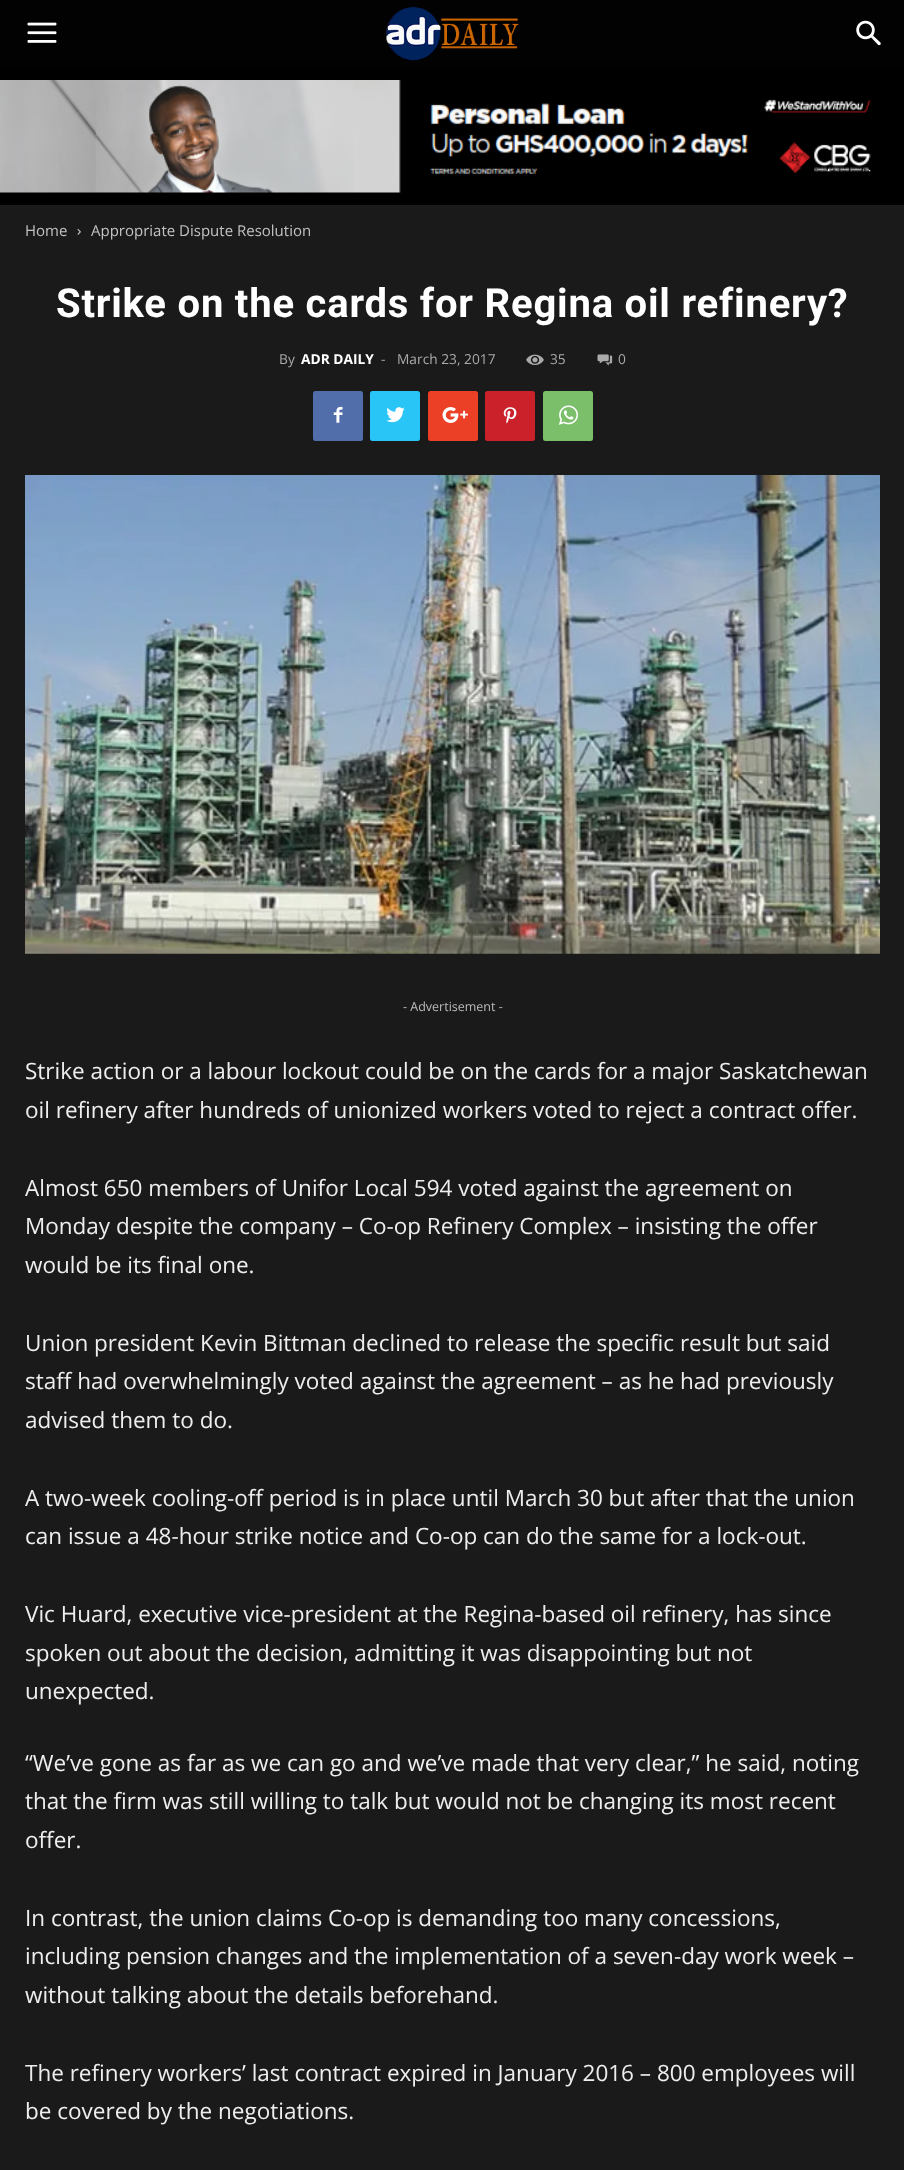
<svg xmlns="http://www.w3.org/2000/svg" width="904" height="2170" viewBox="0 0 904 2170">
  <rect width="100%" height="100%" fill="#1a1a1a"/>
  <rect x="0" y="0" width="904" height="68" fill="#020202"/>
  <image x="27" y="22" width="30" height="21" href="img1.png"/>
  <image x="386" y="7" width="133" height="54" href="img2.png"/>
  <image x="856" y="20" width="25" height="26" href="img3.png"/>
  <rect x="0" y="68" width="904" height="137" fill="#000000"/>
  <image x="0" y="80" width="871" height="113" href="img4.png"/>
  <text x="25" y="236" font-family="Open Sans" font-size="15" fill="#c3c3c3">Home</text>
  <image x="77" y="229" width="4" height="6" href="img5.png"/>
  <text x="91" y="236" font-family="Open Sans" font-size="15" fill="#c3c3c3">Appropriate Dispute Resolution</text>
  <text x="56" y="317" font-family="Roboto" font-size="40" font-weight="bold" letter-spacing="0.8" fill="#ffffff">Strike on the cards for Regina oil refinery?</text>
  <text x="279" y="364" font-family="Open Sans" font-size="13.75" fill="#aaaaaa">By</text>
  <text x="301" y="364" font-family="Open Sans" font-size="13.75" font-weight="bold" fill="#ffffff">ADR DAILY</text>
  <text x="381" y="364" font-family="Open Sans" font-size="13.75" fill="#aaaaaa">-</text>
  <text x="397" y="364" font-family="Open Sans" font-size="13.75" fill="#aaaaaa">March 23, 2017</text>
  <image x="526" y="354" width="18" height="11" href="img6.png"/>
  <text x="550" y="364" font-family="Open Sans" font-size="13.75" fill="#aaaaaa">35</text>
  <image x="597" y="354" width="16" height="12" href="img7.png"/>
  <text x="618" y="364" font-family="Open Sans" font-size="13.75" fill="#aaaaaa">0</text>
  <rect x="313" y="391" width="50" height="50" rx="2.5" fill="#516eab"/>
  <image x="333" y="406" width="10" height="17" href="img8.png"/>
  <rect x="370" y="391" width="50" height="50" rx="2.5" fill="#29c5f6"/>
  <image x="386" y="407" width="19" height="16" href="img9.png"/>
  <rect x="428" y="391" width="50" height="50" rx="2.5" fill="#eb4026"/>
  <image x="442" y="407" width="26" height="16" href="img10.png"/>
  <rect x="485" y="391" width="50" height="50" rx="2.5" fill="#ca212a"/>
  <image x="503" y="407" width="14" height="17" href="img11.png"/>
  <rect x="543" y="391" width="50" height="50" rx="2.5" fill="#7bbf6a"/>
  <image x="558" y="405" width="20" height="20" href="img12.png"/>
  <image x="25" y="475" width="855" height="479" href="img13.png"/>
  <text x="403" y="1011" font-family="Open Sans" font-size="12.5" fill="#bbbbbb">- Advertisement -</text>
  <text x="25" y="1079" font-family="Open Sans" font-size="22.5" fill="#eeeeee">Strike action or a labour lockout could be on the cards for a major Saskatchewan</text>
  <text x="25" y="1118" font-family="Open Sans" font-size="22.5" fill="#eeeeee">oil refinery after hundreds of unionized workers voted to reject a contract offer.</text>
  <text x="25" y="1196" font-family="Open Sans" font-size="22.5" fill="#eeeeee">Almost 650 members of Unifor Local 594 voted against the agreement on</text>
  <text x="25" y="1234" font-family="Open Sans" font-size="22.5" fill="#eeeeee">Monday despite the company – Co-op Refinery Complex – insisting the offer</text>
  <text x="25" y="1273" font-family="Open Sans" font-size="22.5" fill="#eeeeee">would be its final one.</text>
  <text x="25" y="1351" font-family="Open Sans" font-size="22.5" fill="#eeeeee">Union president Kevin Bittman declined to release the specific result but said</text>
  <text x="25" y="1389" font-family="Open Sans" font-size="22.5" fill="#eeeeee">staff had overwhelmingly voted against the agreement – as he had previously</text>
  <text x="25" y="1428" font-family="Open Sans" font-size="22.5" fill="#eeeeee">advised them to do.</text>
  <text x="25" y="1506" font-family="Open Sans" font-size="22.5" fill="#eeeeee">A two-week cooling-off period is in place until March 30 but after that the union</text>
  <text x="25" y="1544" font-family="Open Sans" font-size="22.5" fill="#eeeeee">can issue a 48-hour strike notice and Co-op can do the same for a lock-out.</text>
  <text x="25" y="1622" font-family="Open Sans" font-size="22.5" fill="#eeeeee">Vic Huard, executive vice-president at the Regina-based oil refinery, has since</text>
  <text x="25" y="1661" font-family="Open Sans" font-size="22.5" fill="#eeeeee">spoken out about the decision, admitting it was disappointing but not</text>
  <text x="25" y="1699" font-family="Open Sans" font-size="22.5" fill="#eeeeee">unexpected.</text>
  <text x="25" y="1771" font-family="Open Sans" font-size="22.5" fill="#eeeeee">“We’ve gone as far as we can go and we’ve made that very clear,” he said, noting</text>
  <text x="25" y="1809" font-family="Open Sans" font-size="22.5" fill="#eeeeee">that the firm was still willing to talk but would not be changing its most recent</text>
  <text x="25" y="1848" font-family="Open Sans" font-size="22.5" fill="#eeeeee">offer.</text>
  <text x="25" y="1926" font-family="Open Sans" font-size="22.5" fill="#eeeeee">In contrast, the union claims Co-op is demanding too many concessions,</text>
  <text x="25" y="1964" font-family="Open Sans" font-size="22.5" fill="#eeeeee">including pension changes and the implementation of a seven-day work week –</text>
  <text x="25" y="2003" font-family="Open Sans" font-size="22.5" fill="#eeeeee">without talking about the details beforehand.</text>
  <text x="25" y="2081" font-family="Open Sans" font-size="22.5" fill="#eeeeee">The refinery workers’ last contract expired in January 2016 – 800 employees will</text>
  <text x="25" y="2119" font-family="Open Sans" font-size="22.5" fill="#eeeeee">be covered by the negotiations.</text>
</svg>
